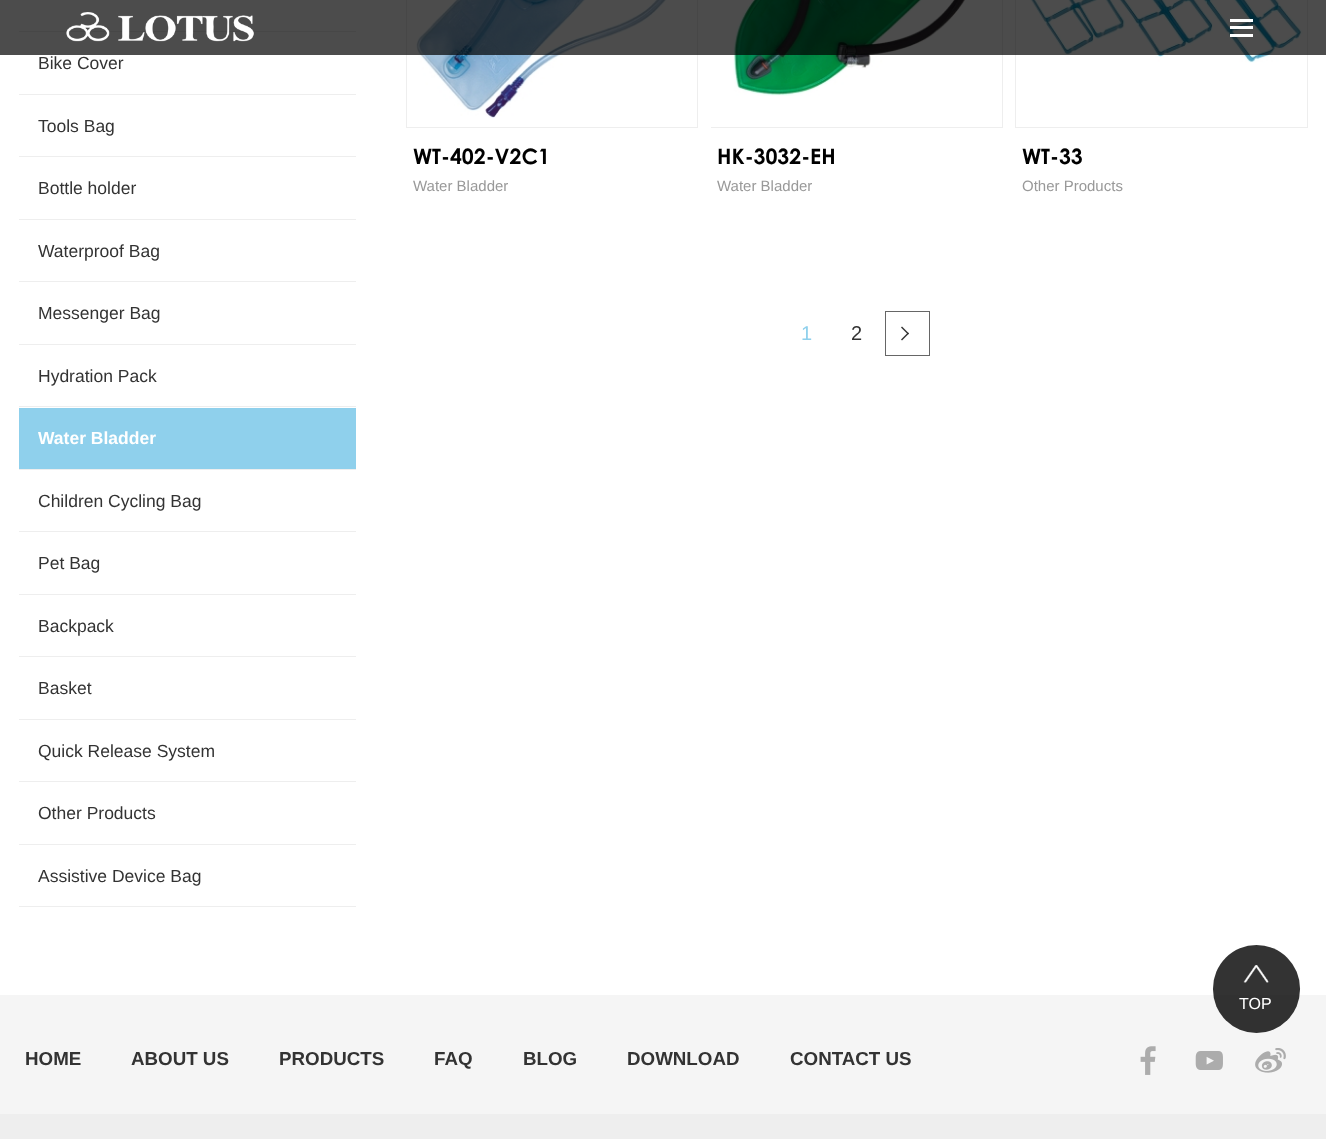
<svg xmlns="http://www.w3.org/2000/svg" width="1326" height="1139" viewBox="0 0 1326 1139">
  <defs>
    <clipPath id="clip1"><rect x="711" y="0" width="292" height="128"/></clipPath>
  </defs>
  <rect width="100%" height="100%" fill="#ffffff"/>
  <rect x="19" y="31" width="337" height="1" fill="#eeeeee"/>
  <image x="416" y="0" width="250" height="118" href="img2.png"/>
  <rect x="406.5" y="-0.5" width="291" height="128" fill="none" stroke="#eeeeee"/>
  <image x="733" y="0" width="232" height="96" href="img3.png"/>
  <g clip-path="url(#clip1)">
    <rect x="710.5" y="-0.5" width="292" height="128" fill="none" stroke="#eeeeee"/>
  </g>
  <image x="1030" y="0" width="273" height="63" href="img4.png"/>
  <rect x="1015.5" y="-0.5" width="292" height="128" fill="none" stroke="#eeeeee"/>
  <rect x="0" y="0" width="1326" height="55" fill="#000000" fill-opacity="0.7"/>
  <image x="66" y="12" width="188" height="30" href="img1.png"/>
  <rect x="1230" y="19" width="23" height="3" fill="#ffffff"/>
  <rect x="1230" y="26" width="23" height="3" fill="#ffffff"/>
  <rect x="1230" y="34" width="23" height="3" fill="#ffffff"/>
  <rect x="19" y="94" width="337" height="1" fill="#eeeeee"/>
  <text x="38" y="69" font-family="Liberation Sans" font-size="17.5" fill="#333333">Bike Cover</text>
  <rect x="19" y="156" width="337" height="1" fill="#eeeeee"/>
  <text x="38" y="132" font-family="Liberation Sans" font-size="17.5" fill="#333333">Tools Bag</text>
  <rect x="19" y="219" width="337" height="1" fill="#eeeeee"/>
  <text x="38" y="194" font-family="Liberation Sans" font-size="17.5" fill="#333333">Bottle holder</text>
  <rect x="19" y="281" width="337" height="1" fill="#eeeeee"/>
  <text x="38" y="257" font-family="Liberation Sans" font-size="17.5" fill="#333333">Waterproof Bag</text>
  <rect x="19" y="344" width="337" height="1" fill="#eeeeee"/>
  <text x="38" y="319" font-family="Liberation Sans" font-size="17.5" fill="#333333">Messenger Bag</text>
  <rect x="19" y="406" width="337" height="1" fill="#eeeeee"/>
  <text x="38" y="382" font-family="Liberation Sans" font-size="17.5" fill="#333333">Hydration Pack</text>
  <rect x="19" y="469" width="337" height="1" fill="#eeeeee"/>
  <rect x="19" y="408" width="337" height="61" fill="#8fd0ec"/>
  <text x="38" y="444" font-family="Liberation Sans" font-size="17.5" font-weight="bold" fill="#ffffff">Water Bladder</text>
  <rect x="19" y="531" width="337" height="1" fill="#eeeeee"/>
  <text x="38" y="507" font-family="Liberation Sans" font-size="17.5" fill="#333333">Children Cycling Bag</text>
  <rect x="19" y="594" width="337" height="1" fill="#eeeeee"/>
  <text x="38" y="569" font-family="Liberation Sans" font-size="17.5" fill="#333333">Pet Bag</text>
  <rect x="19" y="656" width="337" height="1" fill="#eeeeee"/>
  <text x="38" y="632" font-family="Liberation Sans" font-size="17.5" fill="#333333">Backpack</text>
  <rect x="19" y="719" width="337" height="1" fill="#eeeeee"/>
  <text x="38" y="694" font-family="Liberation Sans" font-size="17.5" fill="#333333">Basket</text>
  <rect x="19" y="781" width="337" height="1" fill="#eeeeee"/>
  <text x="38" y="757" font-family="Liberation Sans" font-size="17.5" fill="#333333">Quick Release System</text>
  <rect x="19" y="844" width="337" height="1" fill="#eeeeee"/>
  <text x="38" y="819" font-family="Liberation Sans" font-size="17.5" fill="#333333">Other Products</text>
  <rect x="19" y="906" width="337" height="1" fill="#eeeeee"/>
  <text x="38" y="882" font-family="Liberation Sans" font-size="17.5" fill="#333333">Assistive Device Bag</text>
  <text x="413" y="164" font-family="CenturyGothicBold" font-size="21.25" font-weight="bold" fill="#000000">WT-402-V2C1</text>
  <text x="413" y="191" font-family="Liberation Sans" font-size="15" fill="#999999">Water Bladder</text>
  <text x="717" y="164" font-family="CenturyGothicBold" font-size="21.25" font-weight="bold" fill="#000000">HK-3032-EH</text>
  <text x="717" y="191" font-family="Liberation Sans" font-size="15" fill="#999999">Water Bladder</text>
  <text x="1022" y="164" font-family="CenturyGothicBold" font-size="21.25" font-weight="bold" fill="#000000">WT-33</text>
  <text x="1022" y="191" font-family="Liberation Sans" font-size="15" fill="#999999">Other Products</text>
  <text x="801" y="340" font-family="Liberation Sans" font-size="20" fill="#8fd0ec">1</text>
  <text x="851" y="340" font-family="Liberation Sans" font-size="20" fill="#333333">2</text>
  <rect x="885.5" y="311.5" width="44" height="44" fill="none" stroke="#666666"/>
  <path d="M902 326.5L909 333.5L908 334.5L901 327.5Z" fill="#333333"/>
  <path d="M908 332.5L909 333.5L902 340.5L901 339.5Z" fill="#333333"/>
  <rect x="0" y="995" width="1326" height="119" fill="#f5f5f5"/>
  <rect x="1213" y="945" width="87" height="88" rx="43.5" fill="#000000" fill-opacity="0.8"/>
  <image x="1243" y="965" width="26" height="18" href="img5.png"/>
  <text x="1239" y="1009" font-family="Liberation Sans" font-size="16" fill="#ffffff">TOP</text>
  <text x="25" y="1065" font-family="Liberation Sans" font-size="18.75" font-weight="bold" fill="#333333">HOME</text>
  <text x="131" y="1065" font-family="Liberation Sans" font-size="18.75" font-weight="bold" fill="#333333">ABOUT US</text>
  <text x="279" y="1065" font-family="Liberation Sans" font-size="18.75" font-weight="bold" fill="#333333">PRODUCTS</text>
  <text x="434" y="1065" font-family="Liberation Sans" font-size="18.75" font-weight="bold" fill="#333333">FAQ</text>
  <text x="523" y="1065" font-family="Liberation Sans" font-size="18.75" font-weight="bold" fill="#333333">BLOG</text>
  <text x="627" y="1065" font-family="Liberation Sans" font-size="18.75" font-weight="bold" fill="#333333">DOWNLOAD</text>
  <text x="790" y="1065" font-family="Liberation Sans" font-size="18.75" font-weight="bold" fill="#333333">CONTACT US</text>
  <image x="1140" y="1046" width="16" height="29" href="img6.png"/>
  <image x="1195" y="1051" width="28" height="19" href="img7.png"/>
  <image x="1255" y="1048" width="31" height="25" href="img8.png"/>
  <rect x="0" y="1114" width="1326" height="25" fill="#eeeeee"/>
</svg>
